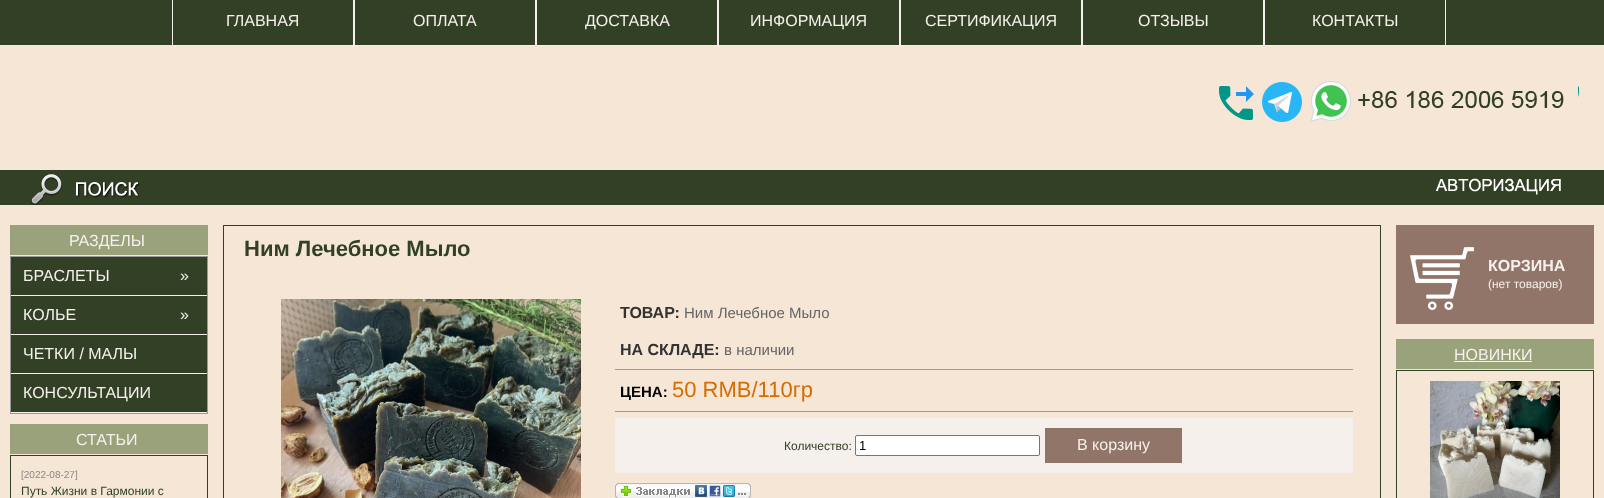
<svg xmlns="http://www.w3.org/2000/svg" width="1604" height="498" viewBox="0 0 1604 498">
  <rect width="100%" height="100%" fill="#f6e6d6"/>
  <rect x="0" y="0" width="1604" height="45" fill="#324026"/>
  <image x="1219" y="81" width="360" height="41" href="img1.png"/>
  <rect x="353" y="0" width="1" height="46" fill="#f5f0ec"/>
  <rect x="172" y="45" width="182" height="1" fill="#f5f0ec"/>
  <rect x="172" y="0" width="1" height="46" fill="#f5f0ec"/>
  <text x="226" y="26" font-family="Liberation Sans" font-size="16" fill="#f5f0ec">ГЛАВНАЯ</text>
  <rect x="535" y="0" width="1" height="46" fill="#f5f0ec"/>
  <rect x="354" y="45" width="182" height="1" fill="#f5f0ec"/>
  <rect x="354" y="0" width="1" height="46" fill="#f5f0ec"/>
  <text x="413" y="26" font-family="Liberation Sans" font-size="16" fill="#f5f0ec">ОПЛАТА</text>
  <rect x="717" y="0" width="1" height="46" fill="#f5f0ec"/>
  <rect x="536" y="45" width="182" height="1" fill="#f5f0ec"/>
  <rect x="536" y="0" width="1" height="46" fill="#f5f0ec"/>
  <text x="585" y="26" font-family="Liberation Sans" font-size="16" fill="#f5f0ec">ДОСТАВКА</text>
  <rect x="899" y="0" width="1" height="46" fill="#f5f0ec"/>
  <rect x="718" y="45" width="182" height="1" fill="#f5f0ec"/>
  <rect x="718" y="0" width="1" height="46" fill="#f5f0ec"/>
  <text x="750" y="26" font-family="Liberation Sans" font-size="16" fill="#f5f0ec">ИНФОРМАЦИЯ</text>
  <rect x="1081" y="0" width="1" height="46" fill="#f5f0ec"/>
  <rect x="900" y="45" width="182" height="1" fill="#f5f0ec"/>
  <rect x="900" y="0" width="1" height="46" fill="#f5f0ec"/>
  <text x="925" y="26" font-family="Liberation Sans" font-size="16" fill="#f5f0ec">СЕРТИФИКАЦИЯ</text>
  <rect x="1263" y="0" width="1" height="46" fill="#f5f0ec"/>
  <rect x="1082" y="45" width="182" height="1" fill="#f5f0ec"/>
  <rect x="1082" y="0" width="1" height="46" fill="#f5f0ec"/>
  <text x="1138" y="26" font-family="Liberation Sans" font-size="16" fill="#f5f0ec">ОТЗЫВЫ</text>
  <rect x="1445" y="0" width="1" height="46" fill="#f5f0ec"/>
  <rect x="1264" y="45" width="182" height="1" fill="#f5f0ec"/>
  <rect x="1264" y="0" width="1" height="46" fill="#f5f0ec"/>
  <text x="1312" y="26" font-family="Liberation Sans" font-size="16" fill="#f5f0ec">КОНТАКТЫ</text>
  <rect x="0" y="170" width="1604" height="35" fill="#324026"/>
  <image x="31" y="173" width="109" height="32" href="img2.png"/>
  <image x="1435" y="178" width="126" height="17" href="img3.png"/>
  <rect x="10" y="225" width="198" height="30" fill="#9aa27b"/>
  <text x="69" y="246" font-family="Liberation Sans" font-size="16" fill="#f5f0ec">РАЗДЕЛЫ</text>
  <rect x="10.5" y="256.5" width="197" height="157" fill="none" stroke="#999999"/>
  <rect x="11" y="257" width="196" height="38" fill="#324026"/>
  <rect x="11" y="295" width="196" height="1" fill="#f5f0ec"/>
  <text x="23" y="281" font-family="Liberation Sans" font-size="16" fill="#f5f0ec">БРАСЛЕТЫ</text>
  <text x="180" y="281" font-family="Liberation Sans" font-size="16" fill="#f5f0ec">»</text>
  <rect x="11" y="296" width="196" height="38" fill="#324026"/>
  <rect x="11" y="334" width="196" height="1" fill="#f5f0ec"/>
  <text x="23" y="320" font-family="Liberation Sans" font-size="16" fill="#f5f0ec">КОЛЬЕ</text>
  <text x="180" y="320" font-family="Liberation Sans" font-size="16" fill="#f5f0ec">»</text>
  <rect x="11" y="335" width="196" height="38" fill="#324026"/>
  <rect x="11" y="373" width="196" height="1" fill="#f5f0ec"/>
  <text x="23" y="359" font-family="Liberation Sans" font-size="16" fill="#f5f0ec">ЧЕТКИ / МАЛЫ</text>
  <rect x="11" y="374" width="196" height="38" fill="#324026"/>
  <rect x="11" y="412" width="196" height="1" fill="#f5f0ec"/>
  <text x="23" y="398" font-family="Liberation Sans" font-size="16" fill="#f5f0ec">КОНСУЛЬТАЦИИ</text>
  <rect x="10" y="424" width="198" height="30" fill="#9aa27b"/>
  <text x="76" y="445" font-family="Liberation Sans" font-size="16" fill="#f5f0ec">СТАТЬИ</text>
  <rect x="10.5" y="455.5" width="197" height="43" fill="none" stroke="#324026"/>
  <text x="21" y="478" font-family="Liberation Sans" font-size="10" fill="#878787">[2022-08-27]</text>
  <text x="21" y="495" font-family="Liberation Sans" font-size="12" fill="#324026">Путь Жизни в Гармонии с</text>
  <rect x="223.5" y="225.5" width="1157" height="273" fill="none" stroke="#324026"/>
  <text x="244" y="256" font-family="Liberation Sans" font-size="22" font-weight="bold" fill="#324026">Ним Лечебное Мыло</text>
  <image x="281" y="299" width="300" height="199" href="img4.png"/>
  <text x="620" y="318" font-family="Liberation Sans" font-size="16" font-weight="bold" fill="#333333">ТОВАР:</text>
  <text x="684" y="318" font-family="Liberation Sans" font-size="15" fill="#666666">Ним Лечебное Мыло</text>
  <text x="620" y="355" font-family="Liberation Sans" font-size="16" font-weight="bold" fill="#333333">НА СКЛАДЕ:</text>
  <text x="724" y="355" font-family="Liberation Sans" font-size="15" fill="#666666">в наличии</text>
  <rect x="615" y="369" width="738" height="1" fill="#9aa27b"/>
  <text x="620" y="397" font-family="Liberation Sans" font-size="15" font-weight="bold" fill="#000000">ЦЕНА:</text>
  <text x="672" y="397" font-family="Liberation Sans" font-size="22" fill="#d66c02">50 RMB/110гр</text>
  <rect x="615" y="411" width="738" height="1" fill="#9aa27b"/>
  <rect x="615" y="418" width="738" height="55" fill="#f5f0ec"/>
  <text x="784" y="450" font-family="Liberation Sans" font-size="12" fill="#324026">Количество:</text>
  <rect x="855.5" y="435.5" width="184" height="20" rx="1.5" fill="#ffffff" stroke="#767676"/>
  <text x="859" y="450" font-family="Liberation Sans" font-size="13" fill="#000000">1</text>
  <rect x="1045" y="428" width="137" height="35" fill="#917569"/>
  <text x="1077" y="450" font-family="Liberation Sans" font-size="16" fill="#f5f0ec">В корзину</text>
  <image x="615" y="483" width="136" height="15" href="img5.png"/>
  <rect x="1396" y="225" width="198" height="99" fill="#917569"/>
  <image x="1410" y="247" width="64" height="63" href="img6.png"/>
  <text x="1488" y="271" font-family="Liberation Sans" font-size="16" font-weight="bold" fill="#f5f0ec">КОРЗИНА</text>
  <text x="1488" y="288" font-family="Liberation Sans" font-size="12" fill="#f5f0ec">(нет товаров)</text>
  <rect x="1396" y="339" width="198" height="30" fill="#9aa27b"/>
  <text x="1454" y="360" font-family="Liberation Sans" font-size="16" fill="#f5f0ec">НОВИНКИ</text>
  <rect x="1454" y="361" width="78" height="1" fill="#f5f0ec"/>
  <rect x="1396.5" y="370.5" width="197" height="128" fill="none" stroke="#324026"/>
  <image x="1430" y="381" width="130" height="117" href="img7.png"/>
</svg>
